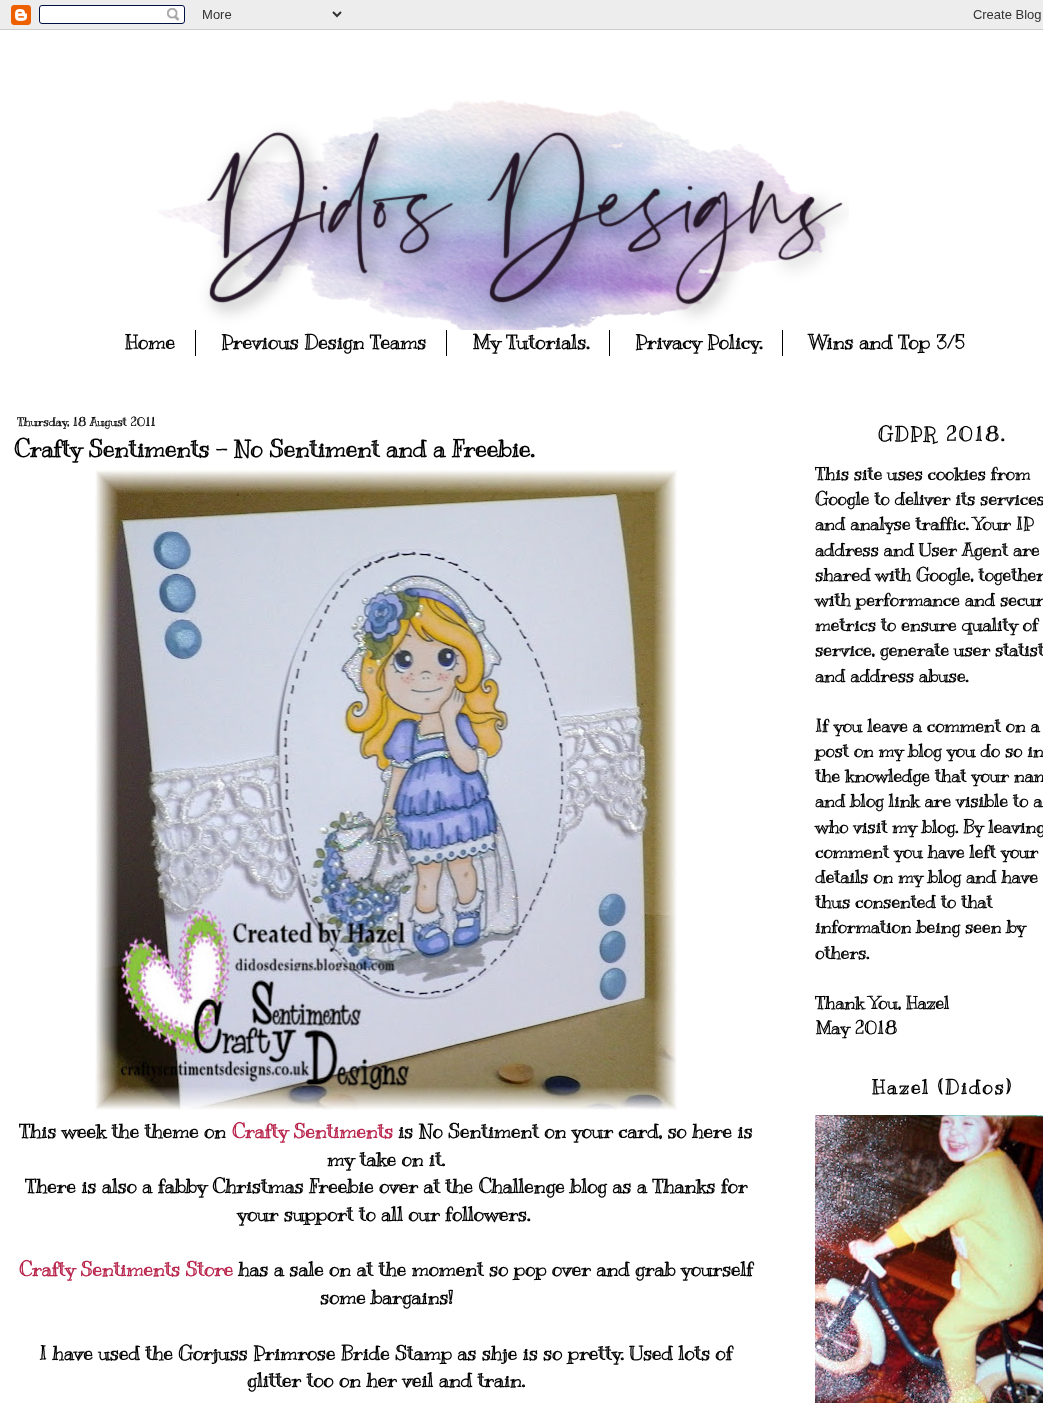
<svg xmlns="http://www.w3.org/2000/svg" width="1043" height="1403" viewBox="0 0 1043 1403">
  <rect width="100%" height="100%" fill="#ffffff"/>
  <image x="0" y="0" width="1043" height="30" href="img1.png"/>
  <image x="157" y="100" width="692" height="230" href="img2.png"/>
  <rect x="195" y="330" width="1" height="26" fill="#000000"/>
  <text x="125" y="349" font-family="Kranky" font-size="20" font-weight="bold" fill="#000000">Home</text>
  <rect x="446" y="330" width="1" height="26" fill="#000000"/>
  <text x="221" y="349" font-family="Kranky" font-size="20" font-weight="bold" fill="#000000">Previous Design Teams</text>
  <rect x="609" y="330" width="1" height="26" fill="#000000"/>
  <text x="472" y="349" font-family="Kranky" font-size="20" font-weight="bold" fill="#000000">My Tutorials.</text>
  <rect x="782" y="330" width="1" height="26" fill="#000000"/>
  <text x="635" y="349" font-family="Kranky" font-size="20" font-weight="bold" fill="#000000">Privacy Policy.</text>
  <text x="808" y="349" font-family="Kranky" font-size="20" font-weight="bold" fill="#000000">Wins and Top 3/5</text>
  <text x="17" y="426" font-family="Kranky" font-size="12" font-weight="bold" fill="#000000">Thursday, 18 August 2011</text>
  <text x="14" y="457" font-family="Kranky" font-size="24" font-weight="bold" fill="#000000">Crafty Sentiments - No Sentiment and a Freebie.</text>
  <image x="95" y="470" width="582" height="640" href="img3.png"/>
  <text x="19" y="1138" font-family="Kranky" font-size="19.8" font-weight="bold" fill="#000000">This week the theme on</text>
  <text x="232" y="1138" font-family="Kranky" font-size="19.8" font-weight="bold" fill="#b8244b">Crafty Sentiments</text>
  <text x="398" y="1138" font-family="Kranky" font-size="19.8" font-weight="bold" fill="#000000">is No Sentiment on your card, so here is</text>
  <text x="327" y="1166" font-family="Kranky" font-size="19.8" font-weight="bold" fill="#000000">my take on it.</text>
  <text x="25" y="1193" font-family="Kranky" font-size="19.8" font-weight="bold" fill="#000000">There is also a fabby Christmas Freebie over at the Challenge blog as a Thanks for</text>
  <text x="237" y="1221" font-family="Kranky" font-size="19.8" font-weight="bold" fill="#000000">your support to all our followers.</text>
  <text x="19" y="1276" font-family="Kranky" font-size="19.8" font-weight="bold" fill="#b8244b">Crafty Sentiments Store</text>
  <text x="238" y="1276" font-family="Kranky" font-size="19.8" font-weight="bold" fill="#000000">has a sale on at the moment so pop over and grab yourself</text>
  <text x="320" y="1304" font-family="Kranky" font-size="19.8" font-weight="bold" fill="#000000">some bargains!</text>
  <text x="39" y="1360" font-family="Kranky" font-size="19.8" font-weight="bold" fill="#000000">I have used the Gorjuss Primrose Bride Stamp as shje is so pretty. Used lots of</text>
  <text x="247" y="1387" font-family="Kranky" font-size="19.8" font-weight="bold" fill="#000000">glitter too on her veil and train.</text>
  <text x="878" y="441" font-family="Kranky" font-size="20" font-weight="bold" letter-spacing="2" fill="#000000">GDPR 2018.</text>
  <text x="815" y="480" font-family="Kranky" font-size="18" font-weight="bold" fill="#000000">This site uses cookies from</text>
  <text x="815" y="505" font-family="Kranky" font-size="18" font-weight="bold" fill="#000000">Google to deliver its services</text>
  <text x="815" y="530" font-family="Kranky" font-size="18" font-weight="bold" fill="#000000">and analyse traffic. Your IP</text>
  <text x="815" y="556" font-family="Kranky" font-size="18" font-weight="bold" fill="#000000">address and User Agent are</text>
  <text x="815" y="581" font-family="Kranky" font-size="18" font-weight="bold" fill="#000000">shared with Google, together</text>
  <text x="815" y="606" font-family="Kranky" font-size="18" font-weight="bold" fill="#000000">with performance and secur</text>
  <text x="815" y="631" font-family="Kranky" font-size="18" font-weight="bold" fill="#000000">metrics to ensure quality of</text>
  <text x="815" y="656" font-family="Kranky" font-size="18" font-weight="bold" fill="#000000">service, generate user statist</text>
  <text x="815" y="682" font-family="Kranky" font-size="18" font-weight="bold" fill="#000000">and address abuse.</text>
  <text x="815" y="732" font-family="Kranky" font-size="18" font-weight="bold" fill="#000000">If you leave a comment on a</text>
  <text x="815" y="757" font-family="Kranky" font-size="18" font-weight="bold" fill="#000000">post on my blog you do so in</text>
  <text x="815" y="782" font-family="Kranky" font-size="18" font-weight="bold" fill="#000000">the knowledge that your nam</text>
  <text x="815" y="807" font-family="Kranky" font-size="18" font-weight="bold" fill="#000000">and blog link are visible to a</text>
  <text x="815" y="833" font-family="Kranky" font-size="18" font-weight="bold" fill="#000000">who visit my blog. By leaving</text>
  <text x="815" y="858" font-family="Kranky" font-size="18" font-weight="bold" fill="#000000">comment you have left your</text>
  <text x="815" y="883" font-family="Kranky" font-size="18" font-weight="bold" fill="#000000">details on my blog and have</text>
  <text x="815" y="908" font-family="Kranky" font-size="18" font-weight="bold" fill="#000000">thus consented to that</text>
  <text x="815" y="933" font-family="Kranky" font-size="18" font-weight="bold" fill="#000000">information being seen by</text>
  <text x="815" y="959" font-family="Kranky" font-size="18" font-weight="bold" fill="#000000">others.</text>
  <text x="815" y="1009" font-family="Kranky" font-size="18" font-weight="bold" fill="#000000">Thank You, Hazel</text>
  <text x="815" y="1034" font-family="Kranky" font-size="18" font-weight="bold" fill="#000000">May 2018</text>
  <text x="872" y="1094" font-family="Kranky" font-size="20" font-weight="bold" letter-spacing="2" fill="#000000">Hazel (Didos)</text>
  <image x="815" y="1115" width="228" height="288" href="img4.png"/>
</svg>
